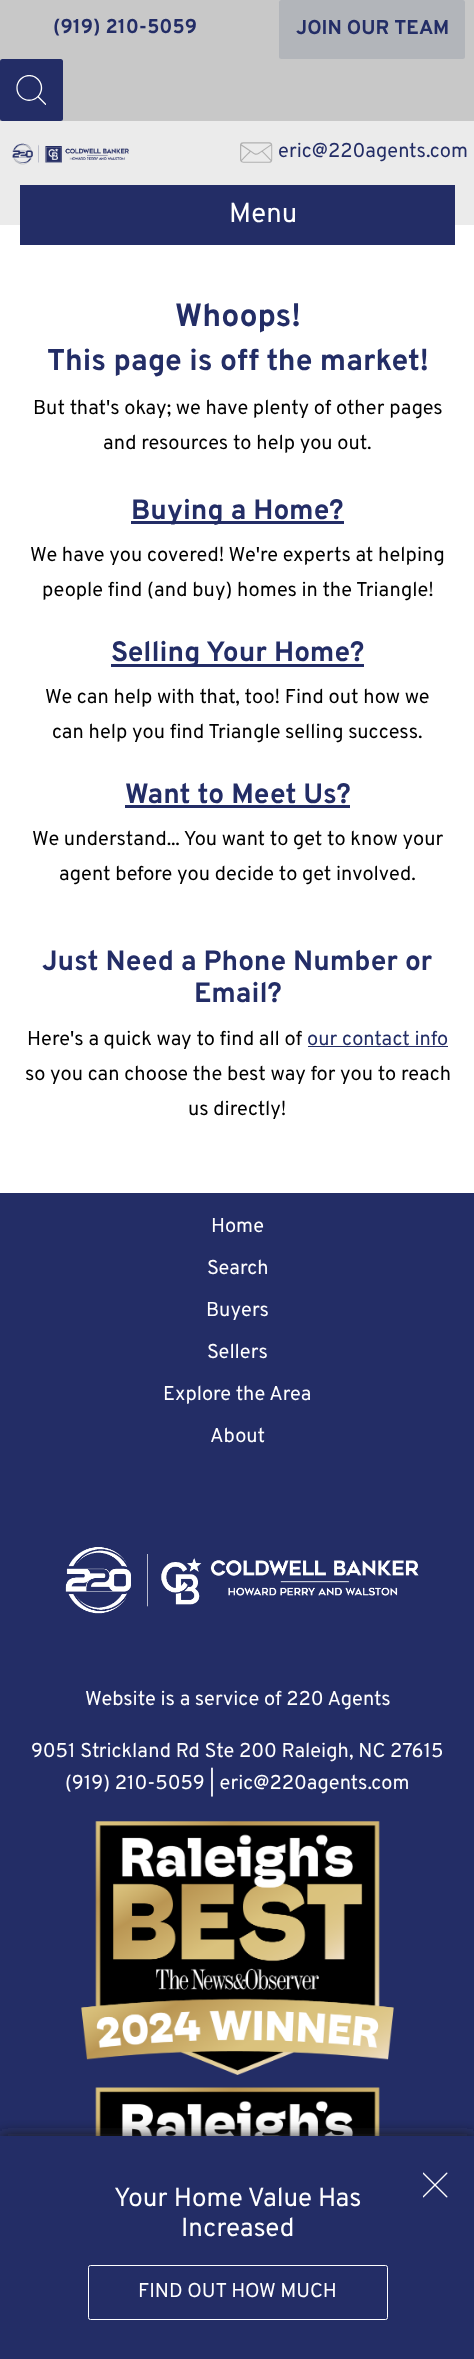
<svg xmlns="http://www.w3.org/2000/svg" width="474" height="2359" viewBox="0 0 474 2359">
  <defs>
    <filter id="blur1" x="-50%" y="-200%" width="200%" height="500%"><feGaussianBlur stdDeviation="7.5"/></filter>
  </defs>
  <rect width="100%" height="100%" fill="#ffffff"/>
  <rect x="0" y="121" width="474" height="104" fill="#ebebeb"/>
  <rect x="0" y="0" width="474" height="121" fill="#c8c8c8"/>
  <text x="53" y="33" font-family="Overpass" font-size="20" font-weight="bold" fill="#232d66">(919) 210-5059</text>
  <rect x="279" y="0" width="186" height="59" rx="2.5" fill="#b2b5ba"/>
  <text x="296" y="34" font-family="Overpass" font-size="20" font-weight="bold" fill="#232d66">JOIN OUR TEAM</text>
  <rect x="0" y="59" width="63" height="62" rx="2.5" fill="#232d66"/>
  <image x="16" y="75" width="30" height="30" href="img1.png"/>
  <image x="12" y="143" width="117" height="22" href="img2.png"/>
  <image x="240" y="142" width="33" height="21" href="img3.png"/>
  <text x="278" y="157" font-family="Overpass" font-size="20" fill="#232d66">eric@220agents.com</text>
  <rect x="20" y="185" width="435" height="60" fill="#232d66"/>
  <text x="229" y="222" font-family="Overpass" font-size="27.5" fill="#ffffff">Menu</text>
  <text x="175" y="326" font-family="Overpass" font-size="32" font-weight="bold" fill="#232d66">Whoops!</text>
  <text x="47" y="370" font-family="Overpass" font-size="30" font-weight="bold" fill="#232d66">This page is off the market!</text>
  <text x="33" y="414" font-family="Overpass" font-size="20" fill="#000000">But that's okay; we have plenty of other pages</text>
  <text x="103" y="449" font-family="Overpass" font-size="20" fill="#000000">and resources to help you out.</text>
  <rect x="131" y="521" width="213" height="3" fill="#232d66"/>
  <text x="131" y="519" font-family="Overpass" font-size="28" font-weight="bold" fill="#232d66">Buying a Home?</text>
  <text x="30" y="561" font-family="Overpass" font-size="20" fill="#000000">We have you covered! We're experts at helping</text>
  <text x="42" y="596" font-family="Overpass" font-size="20" fill="#000000">people find (and buy) homes in the Triangle!</text>
  <rect x="111" y="664" width="253" height="3" fill="#232d66"/>
  <text x="111" y="661" font-family="Overpass" font-size="28" font-weight="bold" fill="#232d66">Selling Your Home?</text>
  <text x="45" y="703" font-family="Overpass" font-size="20" fill="#000000">We can help with that, too! Find out how we</text>
  <text x="52" y="738" font-family="Overpass" font-size="20" fill="#000000">can help you find Triangle selling success.</text>
  <text x="125" y="803" font-family="Overpass" font-size="28" font-weight="bold" fill="#232d66">Want to Meet Us?</text>
  <rect x="125" y="805" width="225" height="3" fill="#232d66"/>
  <text x="32" y="845" font-family="Overpass" font-size="20" fill="#000000">We understand... You want to get to know your</text>
  <text x="59" y="880" font-family="Overpass" font-size="20" fill="#000000">agent before you decide to get involved.</text>
  <text x="42" y="970" font-family="Overpass" font-size="28" font-weight="bold" fill="#232d66">Just Need a Phone Number or</text>
  <text x="194" y="1002" font-family="Overpass" font-size="28" font-weight="bold" fill="#232d66">Email?</text>
  <text x="27" y="1045" font-family="Overpass" font-size="20" fill="#000000">Here's a quick way to find all of</text>
  <text x="307" y="1045" font-family="Overpass" font-size="20" fill="#232d66">our contact info</text>
  <rect x="308" y="1046" width="140" height="1" fill="#232d66"/>
  <text x="25" y="1080" font-family="Overpass" font-size="20" fill="#000000">so you can choose the best way for you to reach</text>
  <text x="188" y="1115" font-family="Overpass" font-size="20" fill="#000000">us directly!</text>
  <rect x="0" y="1193" width="474" height="943" fill="#232d66"/>
  <text x="211" y="1232" font-family="Overpass" font-size="20" fill="#ffffff">Home</text>
  <text x="207" y="1274" font-family="Overpass" font-size="20" fill="#ffffff">Search</text>
  <text x="206" y="1316" font-family="Overpass" font-size="20" fill="#ffffff">Buyers</text>
  <text x="207" y="1358" font-family="Overpass" font-size="20" fill="#ffffff">Sellers</text>
  <text x="163" y="1400" font-family="Overpass" font-size="20" fill="#ffffff">Explore the Area</text>
  <text x="210" y="1442" font-family="Overpass" font-size="20" fill="#ffffff">About</text>
  <image x="65" y="1547" width="354" height="67" href="img4.png"/>
  <text x="85" y="1705" font-family="Overpass" font-size="20" fill="#ffffff">Website is a service of 220 Agents</text>
  <text x="31" y="1757" font-family="Overpass" font-size="20" fill="#ffffff">9051 Strickland Rd Ste 200 Raleigh, NC 27615</text>
  <text x="65" y="1789" font-family="Overpass" font-size="20" fill="#ffffff">(919) 210-5059 | eric@220agents.com</text>
  <image x="81" y="1821" width="313" height="254" href="img5.png"/>
  <image x="95" y="2087" width="285" height="49" href="img6.png"/>
  <rect x="0" y="2136" width="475" height="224" fill="#222222" filter="url(#blur1)"/>
  <rect x="0" y="2136" width="474" height="223" fill="#232d66"/>
  <text x="114" y="2206" font-family="Overpass" font-size="26" fill="#ffffff">Your Home Value Has</text>
  <text x="181" y="2236" font-family="Overpass" font-size="26" fill="#ffffff">Increased</text>
  <rect x="88.5" y="2265.5" width="299" height="54" rx="2" fill="none" stroke="#ffffff"/>
  <text x="138" y="2297" font-family="Overpass" font-size="20" fill="#ffffff">FIND OUT HOW MUCH</text>
  <image x="423" y="2172" width="25" height="26" href="img7.png"/>
</svg>
